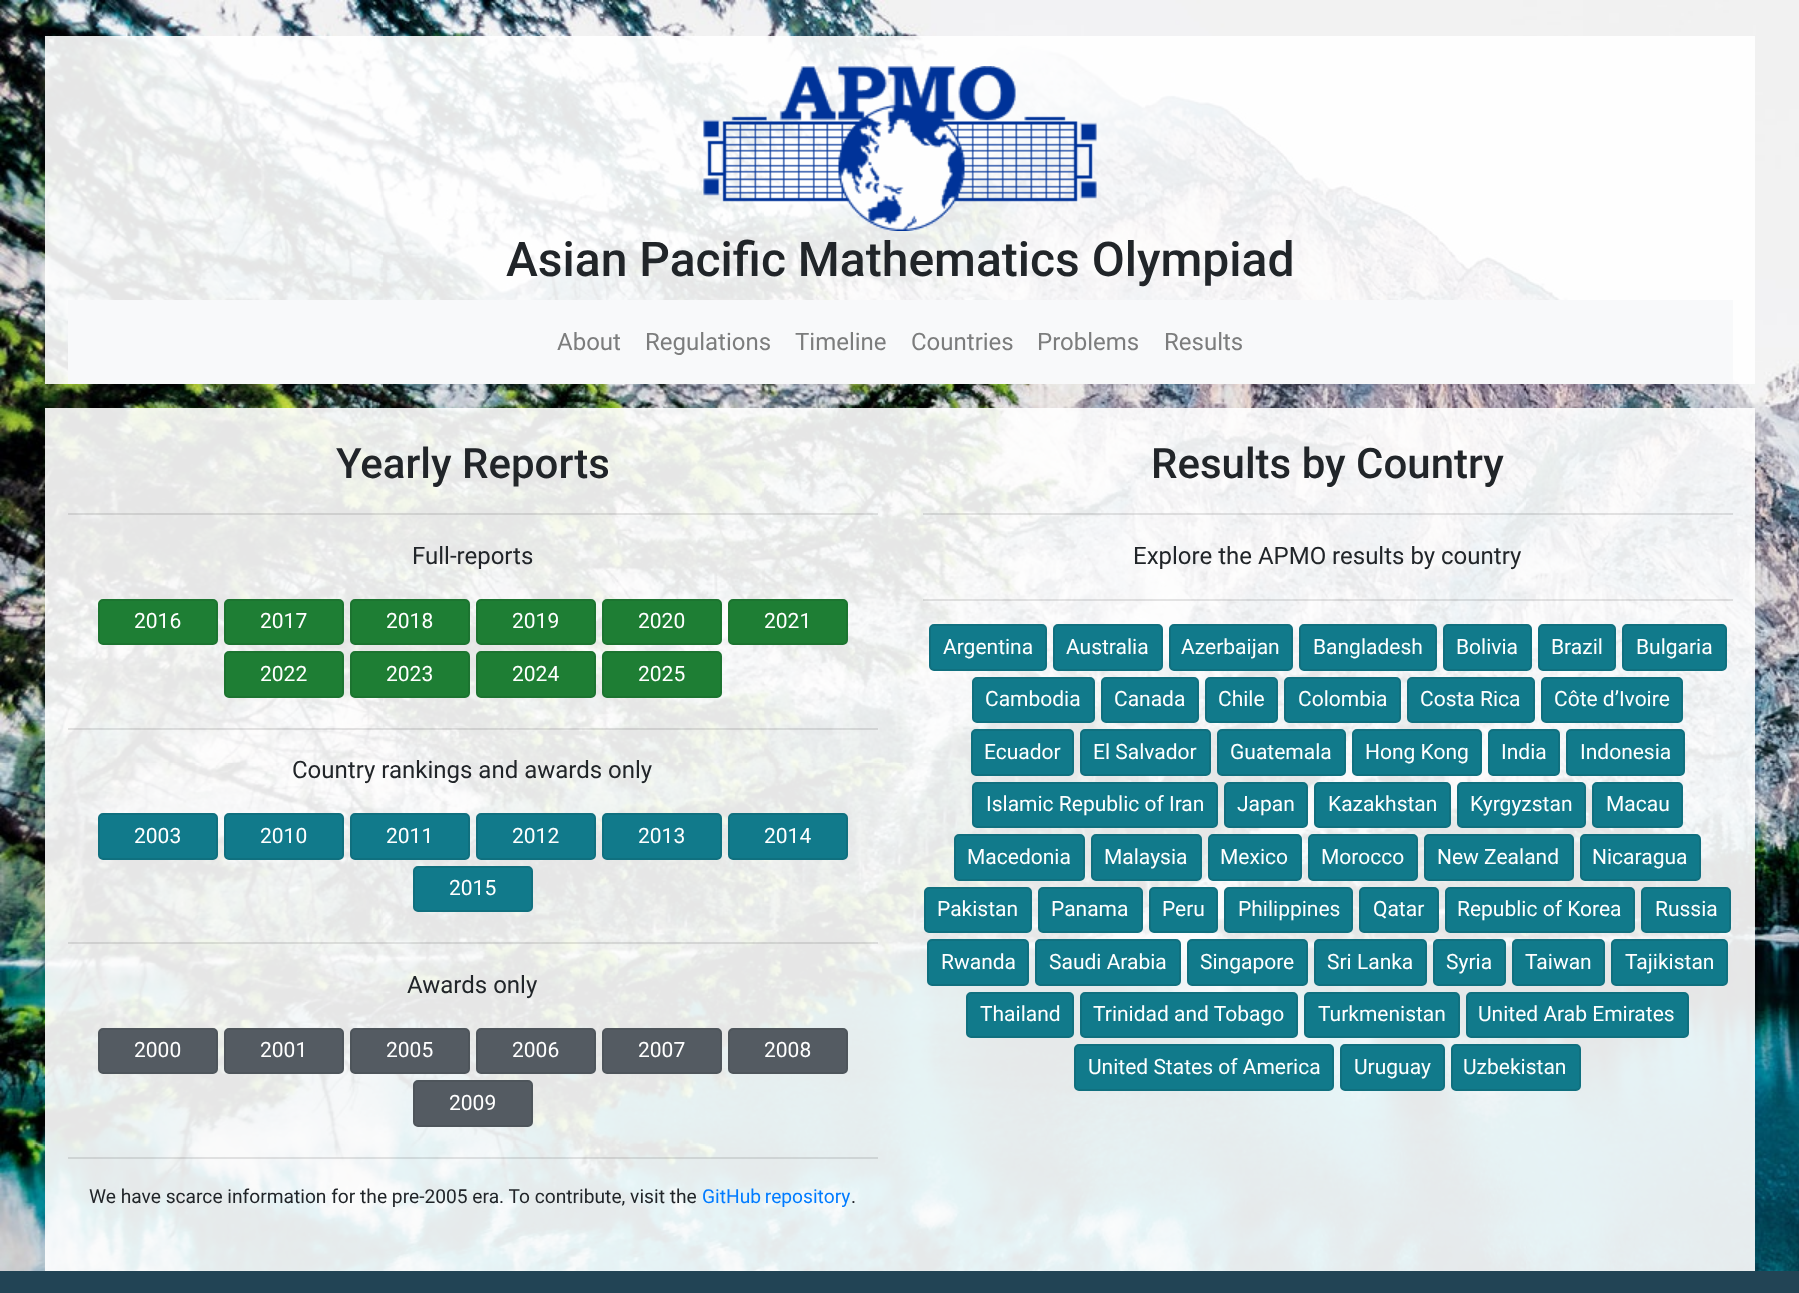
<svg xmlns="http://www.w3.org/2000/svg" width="1799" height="1293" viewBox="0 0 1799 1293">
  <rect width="100%" height="100%" fill="#ffffff"/>
  <image x="0" y="0" width="1799" height="1271" href="img1.png"/>
  <rect x="45" y="36" width="1710" height="348" fill="#ffffff" fill-opacity="0.9"/>
  <image x="703" y="66" width="394" height="165" href="img2.png"/>
  <text x="506" y="276" font-family="Roboto" font-size="48" font-weight="500" fill="#212529">Asian Pacific Mathematics Olympiad</text>
  <rect x="68" y="300" width="1665" height="84" fill="#f8f9fa"/>
  <text x="557" y="350" font-family="Roboto" font-size="24" fill="#7c7d7d">About</text>
  <text x="645" y="350" font-family="Roboto" font-size="24" fill="#7c7d7d">Regulations</text>
  <text x="795" y="350" font-family="Roboto" font-size="24" fill="#7c7d7d">Timeline</text>
  <text x="911" y="350" font-family="Roboto" font-size="24" fill="#7c7d7d">Countries</text>
  <text x="1037" y="350" font-family="Roboto" font-size="24" fill="#7c7d7d">Problems</text>
  <text x="1164" y="350" font-family="Roboto" font-size="24" fill="#7c7d7d">Results</text>
  <rect x="45" y="408" width="855" height="863" fill="#ffffff" fill-opacity="0.9"/>
  <text x="336" y="478" font-family="Roboto" font-size="42" font-weight="500" fill="#212529">Yearly Reports</text>
  <rect x="68" y="513" width="810" height="2" fill="#000000" fill-opacity="0.1"/>
  <text x="412" y="564" font-family="Roboto" font-size="24" fill="#212529">Full-reports</text>
  <rect x="99" y="600" width="118" height="44" rx="4" fill="#1e7e34" stroke="#1c7430" stroke-width="2"/>
  <text x="134" y="628" font-family="Roboto" font-size="21" fill="#ffffff">2016</text>
  <rect x="225" y="600" width="118" height="44" rx="4" fill="#1e7e34" stroke="#1c7430" stroke-width="2"/>
  <text x="260" y="628" font-family="Roboto" font-size="21" fill="#ffffff">2017</text>
  <rect x="351" y="600" width="118" height="44" rx="4" fill="#1e7e34" stroke="#1c7430" stroke-width="2"/>
  <text x="386" y="628" font-family="Roboto" font-size="21" fill="#ffffff">2018</text>
  <rect x="477" y="600" width="118" height="44" rx="4" fill="#1e7e34" stroke="#1c7430" stroke-width="2"/>
  <text x="512" y="628" font-family="Roboto" font-size="21" fill="#ffffff">2019</text>
  <rect x="603" y="600" width="118" height="44" rx="4" fill="#1e7e34" stroke="#1c7430" stroke-width="2"/>
  <text x="638" y="628" font-family="Roboto" font-size="21" fill="#ffffff">2020</text>
  <rect x="729" y="600" width="118" height="44" rx="4" fill="#1e7e34" stroke="#1c7430" stroke-width="2"/>
  <text x="764" y="628" font-family="Roboto" font-size="21" fill="#ffffff">2021</text>
  <rect x="225" y="652" width="118" height="45" rx="4" fill="#1e7e34" stroke="#1c7430" stroke-width="2"/>
  <text x="260" y="681" font-family="Roboto" font-size="21" fill="#ffffff">2022</text>
  <rect x="351" y="652" width="118" height="45" rx="4" fill="#1e7e34" stroke="#1c7430" stroke-width="2"/>
  <text x="386" y="681" font-family="Roboto" font-size="21" fill="#ffffff">2023</text>
  <rect x="477" y="652" width="118" height="45" rx="4" fill="#1e7e34" stroke="#1c7430" stroke-width="2"/>
  <text x="512" y="681" font-family="Roboto" font-size="21" fill="#ffffff">2024</text>
  <rect x="603" y="652" width="118" height="45" rx="4" fill="#1e7e34" stroke="#1c7430" stroke-width="2"/>
  <text x="638" y="681" font-family="Roboto" font-size="21" fill="#ffffff">2025</text>
  <rect x="68" y="728" width="810" height="2" fill="#000000" fill-opacity="0.1"/>
  <text x="292" y="778" font-family="Roboto" font-size="24" fill="#212529">Country rankings and awards only</text>
  <rect x="99" y="814" width="118" height="45" rx="4" fill="#117a8b" stroke="#10707f" stroke-width="2"/>
  <text x="134" y="843" font-family="Roboto" font-size="21" fill="#ffffff">2003</text>
  <rect x="225" y="814" width="118" height="45" rx="4" fill="#117a8b" stroke="#10707f" stroke-width="2"/>
  <text x="260" y="843" font-family="Roboto" font-size="21" fill="#ffffff">2010</text>
  <rect x="351" y="814" width="118" height="45" rx="4" fill="#117a8b" stroke="#10707f" stroke-width="2"/>
  <text x="386" y="843" font-family="Roboto" font-size="21" fill="#ffffff">2011</text>
  <rect x="477" y="814" width="118" height="45" rx="4" fill="#117a8b" stroke="#10707f" stroke-width="2"/>
  <text x="512" y="843" font-family="Roboto" font-size="21" fill="#ffffff">2012</text>
  <rect x="603" y="814" width="118" height="45" rx="4" fill="#117a8b" stroke="#10707f" stroke-width="2"/>
  <text x="638" y="843" font-family="Roboto" font-size="21" fill="#ffffff">2013</text>
  <rect x="729" y="814" width="118" height="45" rx="4" fill="#117a8b" stroke="#10707f" stroke-width="2"/>
  <text x="764" y="843" font-family="Roboto" font-size="21" fill="#ffffff">2014</text>
  <rect x="414" y="867" width="118" height="44" rx="4" fill="#117a8b" stroke="#10707f" stroke-width="2"/>
  <text x="449" y="895" font-family="Roboto" font-size="21" fill="#ffffff">2015</text>
  <rect x="68" y="942" width="810" height="2" fill="#000000" fill-opacity="0.1"/>
  <text x="407" y="993" font-family="Roboto" font-size="24" fill="#212529">Awards only</text>
  <rect x="99" y="1029" width="118" height="44" rx="4" fill="#545b62" stroke="#4e555b" stroke-width="2"/>
  <text x="134" y="1057" font-family="Roboto" font-size="21" fill="#ffffff">2000</text>
  <rect x="225" y="1029" width="118" height="44" rx="4" fill="#545b62" stroke="#4e555b" stroke-width="2"/>
  <text x="260" y="1057" font-family="Roboto" font-size="21" fill="#ffffff">2001</text>
  <rect x="351" y="1029" width="118" height="44" rx="4" fill="#545b62" stroke="#4e555b" stroke-width="2"/>
  <text x="386" y="1057" font-family="Roboto" font-size="21" fill="#ffffff">2005</text>
  <rect x="477" y="1029" width="118" height="44" rx="4" fill="#545b62" stroke="#4e555b" stroke-width="2"/>
  <text x="512" y="1057" font-family="Roboto" font-size="21" fill="#ffffff">2006</text>
  <rect x="603" y="1029" width="118" height="44" rx="4" fill="#545b62" stroke="#4e555b" stroke-width="2"/>
  <text x="638" y="1057" font-family="Roboto" font-size="21" fill="#ffffff">2007</text>
  <rect x="729" y="1029" width="118" height="44" rx="4" fill="#545b62" stroke="#4e555b" stroke-width="2"/>
  <text x="764" y="1057" font-family="Roboto" font-size="21" fill="#ffffff">2008</text>
  <rect x="414" y="1081" width="118" height="45" rx="4" fill="#545b62" stroke="#4e555b" stroke-width="2"/>
  <text x="449" y="1110" font-family="Roboto" font-size="21" fill="#ffffff">2009</text>
  <rect x="68" y="1157" width="810" height="2" fill="#000000" fill-opacity="0.1"/>
  <text x="89" y="1203" font-family="Roboto" font-size="19.2" fill="#212529">We have scarce information for the pre-2005 era. To contribute, visit the</text>
  <text x="702" y="1203" word-spacing="-1" font-family="Roboto" font-size="19.2" fill="#007bff">GitHub repository</text>
  <text x="851" y="1203" font-family="Roboto" font-size="19.2" fill="#212529">.</text>
  <rect x="900" y="408" width="855" height="863" fill="#ffffff" fill-opacity="0.9"/>
  <text x="1151" y="478" font-family="Roboto" font-size="42" font-weight="500" fill="#212529">Results by Country</text>
  <rect x="923" y="513" width="810" height="2" fill="#000000" fill-opacity="0.1"/>
  <text x="1133" y="564" font-family="Roboto" font-size="24" fill="#212529">Explore the APMO results by country</text>
  <rect x="923" y="599" width="810" height="2" fill="#000000" fill-opacity="0.1"/>
  <rect x="930" y="625" width="116" height="45" rx="4" fill="#117a8b" stroke="#10707f" stroke-width="2"/>
  <text x="943" y="654" font-family="Roboto" font-size="21" fill="#ffffff">Argentina</text>
  <rect x="1054" y="625" width="108" height="45" rx="4" fill="#117a8b" stroke="#10707f" stroke-width="2"/>
  <text x="1066" y="654" font-family="Roboto" font-size="21" fill="#ffffff">Australia</text>
  <rect x="1170" y="625" width="122" height="45" rx="4" fill="#117a8b" stroke="#10707f" stroke-width="2"/>
  <text x="1181" y="654" font-family="Roboto" font-size="21" fill="#ffffff">Azerbaijan</text>
  <rect x="1300" y="625" width="136" height="45" rx="4" fill="#117a8b" stroke="#10707f" stroke-width="2"/>
  <text x="1313" y="654" font-family="Roboto" font-size="21" fill="#ffffff">Bangladesh</text>
  <rect x="1444" y="625" width="87" height="45" rx="4" fill="#117a8b" stroke="#10707f" stroke-width="2"/>
  <text x="1456" y="654" font-family="Roboto" font-size="21" fill="#ffffff">Bolivia</text>
  <rect x="1539" y="625" width="76" height="45" rx="4" fill="#117a8b" stroke="#10707f" stroke-width="2"/>
  <text x="1551" y="654" font-family="Roboto" font-size="21" fill="#ffffff">Brazil</text>
  <rect x="1623" y="625" width="103" height="45" rx="4" fill="#117a8b" stroke="#10707f" stroke-width="2"/>
  <text x="1636" y="654" font-family="Roboto" font-size="21" fill="#ffffff">Bulgaria</text>
  <rect x="973" y="678" width="121" height="44" rx="4" fill="#117a8b" stroke="#10707f" stroke-width="2"/>
  <text x="985" y="706" font-family="Roboto" font-size="21" fill="#ffffff">Cambodia</text>
  <rect x="1102" y="678" width="96" height="44" rx="4" fill="#117a8b" stroke="#10707f" stroke-width="2"/>
  <text x="1114" y="706" font-family="Roboto" font-size="21" fill="#ffffff">Canada</text>
  <rect x="1206" y="678" width="71" height="44" rx="4" fill="#117a8b" stroke="#10707f" stroke-width="2"/>
  <text x="1218" y="706" font-family="Roboto" font-size="21" fill="#ffffff">Chile</text>
  <rect x="1285" y="678" width="115" height="44" rx="4" fill="#117a8b" stroke="#10707f" stroke-width="2"/>
  <text x="1298" y="706" font-family="Roboto" font-size="21" fill="#ffffff">Colombia</text>
  <rect x="1408" y="678" width="126" height="44" rx="4" fill="#117a8b" stroke="#10707f" stroke-width="2"/>
  <text x="1420" y="706" font-family="Roboto" font-size="21" fill="#ffffff">Costa Rica</text>
  <rect x="1542" y="678" width="140" height="44" rx="4" fill="#117a8b" stroke="#10707f" stroke-width="2"/>
  <text x="1554" y="706" font-family="Roboto" font-size="21" fill="#ffffff">Côte d’Ivoire</text>
  <rect x="972" y="730" width="101" height="45" rx="4" fill="#117a8b" stroke="#10707f" stroke-width="2"/>
  <text x="984" y="759" font-family="Roboto" font-size="21" fill="#ffffff">Ecuador</text>
  <rect x="1081" y="730" width="129" height="45" rx="4" fill="#117a8b" stroke="#10707f" stroke-width="2"/>
  <text x="1093" y="759" font-family="Roboto" font-size="21" fill="#ffffff">El Salvador</text>
  <rect x="1218" y="730" width="127" height="45" rx="4" fill="#117a8b" stroke="#10707f" stroke-width="2"/>
  <text x="1230" y="759" font-family="Roboto" font-size="21" fill="#ffffff">Guatemala</text>
  <rect x="1353" y="730" width="128" height="45" rx="4" fill="#117a8b" stroke="#10707f" stroke-width="2"/>
  <text x="1365" y="759" font-family="Roboto" font-size="21" fill="#ffffff">Hong Kong</text>
  <rect x="1489" y="730" width="70" height="45" rx="4" fill="#117a8b" stroke="#10707f" stroke-width="2"/>
  <text x="1501" y="759" font-family="Roboto" font-size="21" fill="#ffffff">India</text>
  <rect x="1567" y="730" width="117" height="45" rx="4" fill="#117a8b" stroke="#10707f" stroke-width="2"/>
  <text x="1580" y="759" font-family="Roboto" font-size="21" fill="#ffffff">Indonesia</text>
  <rect x="973" y="783" width="244" height="44" rx="4" fill="#117a8b" stroke="#10707f" stroke-width="2"/>
  <text x="986" y="811" font-family="Roboto" font-size="21" fill="#ffffff">Islamic Republic of Iran</text>
  <rect x="1225" y="783" width="82" height="44" rx="4" fill="#117a8b" stroke="#10707f" stroke-width="2"/>
  <text x="1237" y="811" font-family="Roboto" font-size="21" fill="#ffffff">Japan</text>
  <rect x="1315" y="783" width="135" height="44" rx="4" fill="#117a8b" stroke="#10707f" stroke-width="2"/>
  <text x="1328" y="811" font-family="Roboto" font-size="21" fill="#ffffff">Kazakhstan</text>
  <rect x="1458" y="783" width="127" height="44" rx="4" fill="#117a8b" stroke="#10707f" stroke-width="2"/>
  <text x="1470" y="811" font-family="Roboto" font-size="21" fill="#ffffff">Kyrgyzstan</text>
  <rect x="1593" y="783" width="89" height="44" rx="4" fill="#117a8b" stroke="#10707f" stroke-width="2"/>
  <text x="1606" y="811" font-family="Roboto" font-size="21" fill="#ffffff">Macau</text>
  <rect x="955" y="835" width="129" height="45" rx="4" fill="#117a8b" stroke="#10707f" stroke-width="2"/>
  <text x="967" y="864" font-family="Roboto" font-size="21" fill="#ffffff">Macedonia</text>
  <rect x="1092" y="835" width="109" height="45" rx="4" fill="#117a8b" stroke="#10707f" stroke-width="2"/>
  <text x="1104" y="864" font-family="Roboto" font-size="21" fill="#ffffff">Malaysia</text>
  <rect x="1209" y="835" width="92" height="45" rx="4" fill="#117a8b" stroke="#10707f" stroke-width="2"/>
  <text x="1220" y="864" font-family="Roboto" font-size="21" fill="#ffffff">Mexico</text>
  <rect x="1309" y="835" width="108" height="45" rx="4" fill="#117a8b" stroke="#10707f" stroke-width="2"/>
  <text x="1321" y="864" font-family="Roboto" font-size="21" fill="#ffffff">Morocco</text>
  <rect x="1425" y="835" width="148" height="45" rx="4" fill="#117a8b" stroke="#10707f" stroke-width="2"/>
  <text x="1437" y="864" font-family="Roboto" font-size="21" fill="#ffffff">New Zealand</text>
  <rect x="1581" y="835" width="119" height="45" rx="4" fill="#117a8b" stroke="#10707f" stroke-width="2"/>
  <text x="1592" y="864" font-family="Roboto" font-size="21" fill="#ffffff">Nicaragua</text>
  <rect x="925" y="888" width="106" height="44" rx="4" fill="#117a8b" stroke="#10707f" stroke-width="2"/>
  <text x="937" y="916" font-family="Roboto" font-size="21" fill="#ffffff">Pakistan</text>
  <rect x="1039" y="888" width="103" height="44" rx="4" fill="#117a8b" stroke="#10707f" stroke-width="2"/>
  <text x="1051" y="916" font-family="Roboto" font-size="21" fill="#ffffff">Panama</text>
  <rect x="1150" y="888" width="67" height="44" rx="4" fill="#117a8b" stroke="#10707f" stroke-width="2"/>
  <text x="1162" y="916" font-family="Roboto" font-size="21" fill="#ffffff">Peru</text>
  <rect x="1225" y="888" width="127" height="44" rx="4" fill="#117a8b" stroke="#10707f" stroke-width="2"/>
  <text x="1238" y="916" font-family="Roboto" font-size="21" fill="#ffffff">Philippines</text>
  <rect x="1360" y="888" width="78" height="44" rx="4" fill="#117a8b" stroke="#10707f" stroke-width="2"/>
  <text x="1373" y="916" font-family="Roboto" font-size="21" fill="#ffffff">Qatar</text>
  <rect x="1446" y="888" width="188" height="44" rx="4" fill="#117a8b" stroke="#10707f" stroke-width="2"/>
  <text x="1457" y="916" font-family="Roboto" font-size="21" fill="#ffffff">Republic of Korea</text>
  <rect x="1642" y="888" width="88" height="44" rx="4" fill="#117a8b" stroke="#10707f" stroke-width="2"/>
  <text x="1655" y="916" font-family="Roboto" font-size="21" fill="#ffffff">Russia</text>
  <rect x="928" y="940" width="100" height="45" rx="4" fill="#117a8b" stroke="#10707f" stroke-width="2"/>
  <text x="941" y="969" font-family="Roboto" font-size="21" fill="#ffffff">Rwanda</text>
  <rect x="1036" y="940" width="144" height="45" rx="4" fill="#117a8b" stroke="#10707f" stroke-width="2"/>
  <text x="1049" y="969" font-family="Roboto" font-size="21" fill="#ffffff">Saudi Arabia</text>
  <rect x="1188" y="940" width="119" height="45" rx="4" fill="#117a8b" stroke="#10707f" stroke-width="2"/>
  <text x="1200" y="969" font-family="Roboto" font-size="21" fill="#ffffff">Singapore</text>
  <rect x="1315" y="940" width="111" height="45" rx="4" fill="#117a8b" stroke="#10707f" stroke-width="2"/>
  <text x="1327" y="969" font-family="Roboto" font-size="21" fill="#ffffff">Sri Lanka</text>
  <rect x="1434" y="940" width="71" height="45" rx="4" fill="#117a8b" stroke="#10707f" stroke-width="2"/>
  <text x="1446" y="969" font-family="Roboto" font-size="21" fill="#ffffff">Syria</text>
  <rect x="1513" y="940" width="91" height="45" rx="4" fill="#117a8b" stroke="#10707f" stroke-width="2"/>
  <text x="1525" y="969" font-family="Roboto" font-size="21" fill="#ffffff">Taiwan</text>
  <rect x="1612" y="940" width="115" height="45" rx="4" fill="#117a8b" stroke="#10707f" stroke-width="2"/>
  <text x="1625" y="969" font-family="Roboto" font-size="21" fill="#ffffff">Tajikistan</text>
  <rect x="967" y="993" width="106" height="44" rx="4" fill="#117a8b" stroke="#10707f" stroke-width="2"/>
  <text x="980" y="1021" font-family="Roboto" font-size="21" fill="#ffffff">Thailand</text>
  <rect x="1081" y="993" width="216" height="44" rx="4" fill="#117a8b" stroke="#10707f" stroke-width="2"/>
  <text x="1093" y="1021" font-family="Roboto" font-size="21" fill="#ffffff">Trinidad and Tobago</text>
  <rect x="1305" y="993" width="154" height="44" rx="4" fill="#117a8b" stroke="#10707f" stroke-width="2"/>
  <text x="1318" y="1021" font-family="Roboto" font-size="21" fill="#ffffff">Turkmenistan</text>
  <rect x="1467" y="993" width="221" height="44" rx="4" fill="#117a8b" stroke="#10707f" stroke-width="2"/>
  <text x="1478" y="1021" font-family="Roboto" font-size="21" fill="#ffffff">United Arab Emirates</text>
  <rect x="1075" y="1045" width="258" height="45" rx="4" fill="#117a8b" stroke="#10707f" stroke-width="2"/>
  <text x="1088" y="1074" font-family="Roboto" font-size="21" fill="#ffffff">United States of America</text>
  <rect x="1341" y="1045" width="103" height="45" rx="4" fill="#117a8b" stroke="#10707f" stroke-width="2"/>
  <text x="1354" y="1074" font-family="Roboto" font-size="21" fill="#ffffff">Uruguay</text>
  <rect x="1452" y="1045" width="128" height="45" rx="4" fill="#117a8b" stroke="#10707f" stroke-width="2"/>
  <text x="1463" y="1074" font-family="Roboto" font-size="21" fill="#ffffff">Uzbekistan</text>
  <rect x="0" y="1271" width="1799" height="22" fill="#224455"/>
</svg>
